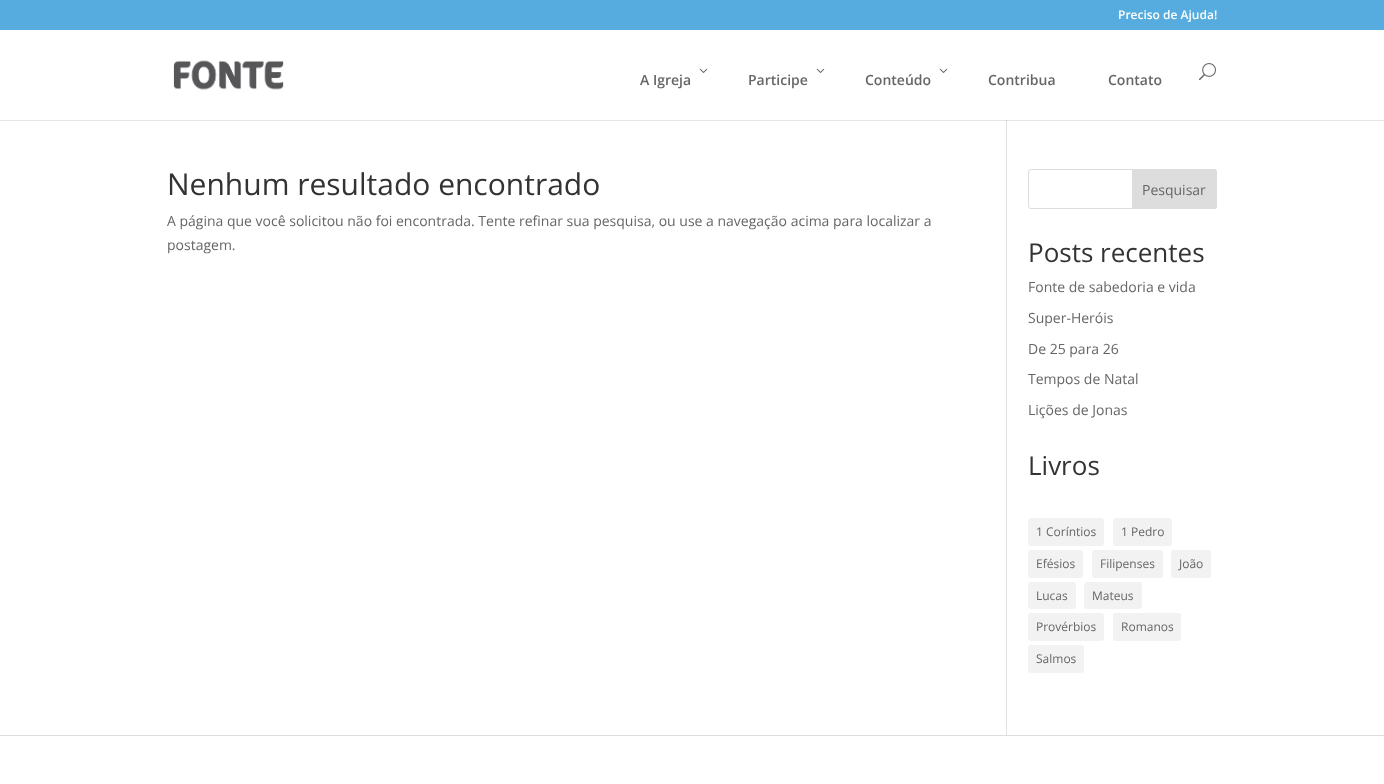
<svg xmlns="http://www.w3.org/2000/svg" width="1384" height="784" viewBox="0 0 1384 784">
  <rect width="100%" height="100%" fill="#ffffff"/>
  <rect x="0" y="120" width="1384" height="1" fill="#e6e6e6"/>
  <rect x="0" y="0" width="1384" height="30" fill="#56acde"/>
  <text x="1118" y="19" font-family="Open Sans" font-size="12" font-weight="600" fill="#ffffff">Preciso de Ajuda!</text>
  <image x="173" y="60" width="111" height="30" href="img1.png"/>
  <image x="699" y="68" width="9" height="5" href="img2.png"/>
  <text x="640" y="85" font-family="Open Sans" font-size="14" font-weight="600" fill="#666666">A Igreja</text>
  <image x="816" y="68" width="9" height="5" href="img2.png"/>
  <text x="748" y="85" font-family="Open Sans" font-size="14" font-weight="600" fill="#666666">Participe</text>
  <image x="939" y="68" width="9" height="5" href="img2.png"/>
  <text x="865" y="85" font-family="Open Sans" font-size="14" font-weight="600" fill="#666666">Conteúdo</text>
  <text x="988" y="85" font-family="Open Sans" font-size="14" font-weight="600" fill="#666666">Contribua</text>
  <text x="1108" y="85" font-family="Open Sans" font-size="14" font-weight="600" fill="#666666">Contato</text>
  <image x="1199" y="63" width="17" height="18" href="img3.png"/>
  <rect x="1006" y="121" width="1" height="614" fill="#e2e2e2"/>
  <rect x="1006" y="120" width="1" height="1" fill="#cbcbcb"/>
  <text x="167" y="195" font-family="Open Sans" font-size="30" fill="#333333">Nenhum resultado encontrado</text>
  <text x="167" y="226" font-family="Open Sans" font-size="14" fill="#666666">A página que você solicitou não foi encontrada. Tente refinar sua pesquisa, ou use a navegação acima para localizar a</text>
  <text x="167" y="250" font-family="Open Sans" font-size="14" fill="#666666">postagem.</text>
  <rect x="1028.5" y="169.5" width="188" height="39" rx="2.5" fill="none" stroke="#dddddd"/>
  <path d="M1132.5 169.5H1214C1215.5 169.5 1216.5 170.5 1216.5 172V206C1216.5 207.5 1215.5 208.5 1214 208.5H1132.5Z" fill="#dddddd" stroke="#dddddd"/>
  <text x="1142" y="195" font-family="Open Sans" font-size="14" fill="#666666">Pesquisar</text>
  <text x="1028" y="262" font-family="Open Sans" font-size="26" fill="#333333">Posts recentes</text>
  <text x="1028" y="292" font-family="Open Sans" font-size="14" fill="#666666">Fonte de sabedoria e vida</text>
  <text x="1028" y="323" font-family="Open Sans" font-size="14" fill="#666666">Super-Heróis</text>
  <text x="1028" y="354" font-family="Open Sans" font-size="14" fill="#666666">De 25 para 26</text>
  <text x="1028" y="384" font-family="Open Sans" font-size="14" fill="#666666">Tempos de Natal</text>
  <text x="1028" y="415" font-family="Open Sans" font-size="14" fill="#666666">Lições de Jonas</text>
  <text x="1028" y="475" font-family="Open Sans" font-size="26" fill="#333333">Livros</text>
  <rect x="1028" y="518" width="76" height="28" rx="3" fill="#f2f2f2"/>
  <text x="1036" y="536" font-family="Open Sans" font-size="12" fill="#666666">1 Coríntios</text>
  <rect x="1113" y="518" width="59" height="28" rx="3" fill="#f2f2f2"/>
  <text x="1121" y="536" font-family="Open Sans" font-size="12" fill="#666666">1 Pedro</text>
  <rect x="1028" y="550" width="55" height="28" rx="3" fill="#f2f2f2"/>
  <text x="1036" y="568" font-family="Open Sans" font-size="12" fill="#666666">Efésios</text>
  <rect x="1092" y="550" width="71" height="28" rx="3" fill="#f2f2f2"/>
  <text x="1100" y="568" font-family="Open Sans" font-size="12" fill="#666666">Filipenses</text>
  <rect x="1171" y="550" width="40" height="28" rx="3" fill="#f2f2f2"/>
  <text x="1179" y="568" font-family="Open Sans" font-size="12" fill="#666666">João</text>
  <rect x="1028" y="582" width="48" height="27" rx="3" fill="#f2f2f2"/>
  <text x="1036" y="600" font-family="Open Sans" font-size="12" fill="#666666">Lucas</text>
  <rect x="1084" y="582" width="58" height="27" rx="3" fill="#f2f2f2"/>
  <text x="1092" y="600" font-family="Open Sans" font-size="12" fill="#666666">Mateus</text>
  <rect x="1028" y="613" width="76" height="28" rx="3" fill="#f2f2f2"/>
  <text x="1036" y="631" font-family="Open Sans" font-size="12" fill="#666666">Provérbios</text>
  <rect x="1113" y="613" width="68" height="28" rx="3" fill="#f2f2f2"/>
  <text x="1121" y="631" font-family="Open Sans" font-size="12" fill="#666666">Romanos</text>
  <rect x="1028" y="645" width="56" height="28" rx="3" fill="#f2f2f2"/>
  <text x="1036" y="663" font-family="Open Sans" font-size="12" fill="#666666">Salmos</text>
  <rect x="0" y="735" width="1384" height="1" fill="#dddddd"/>
</svg>
